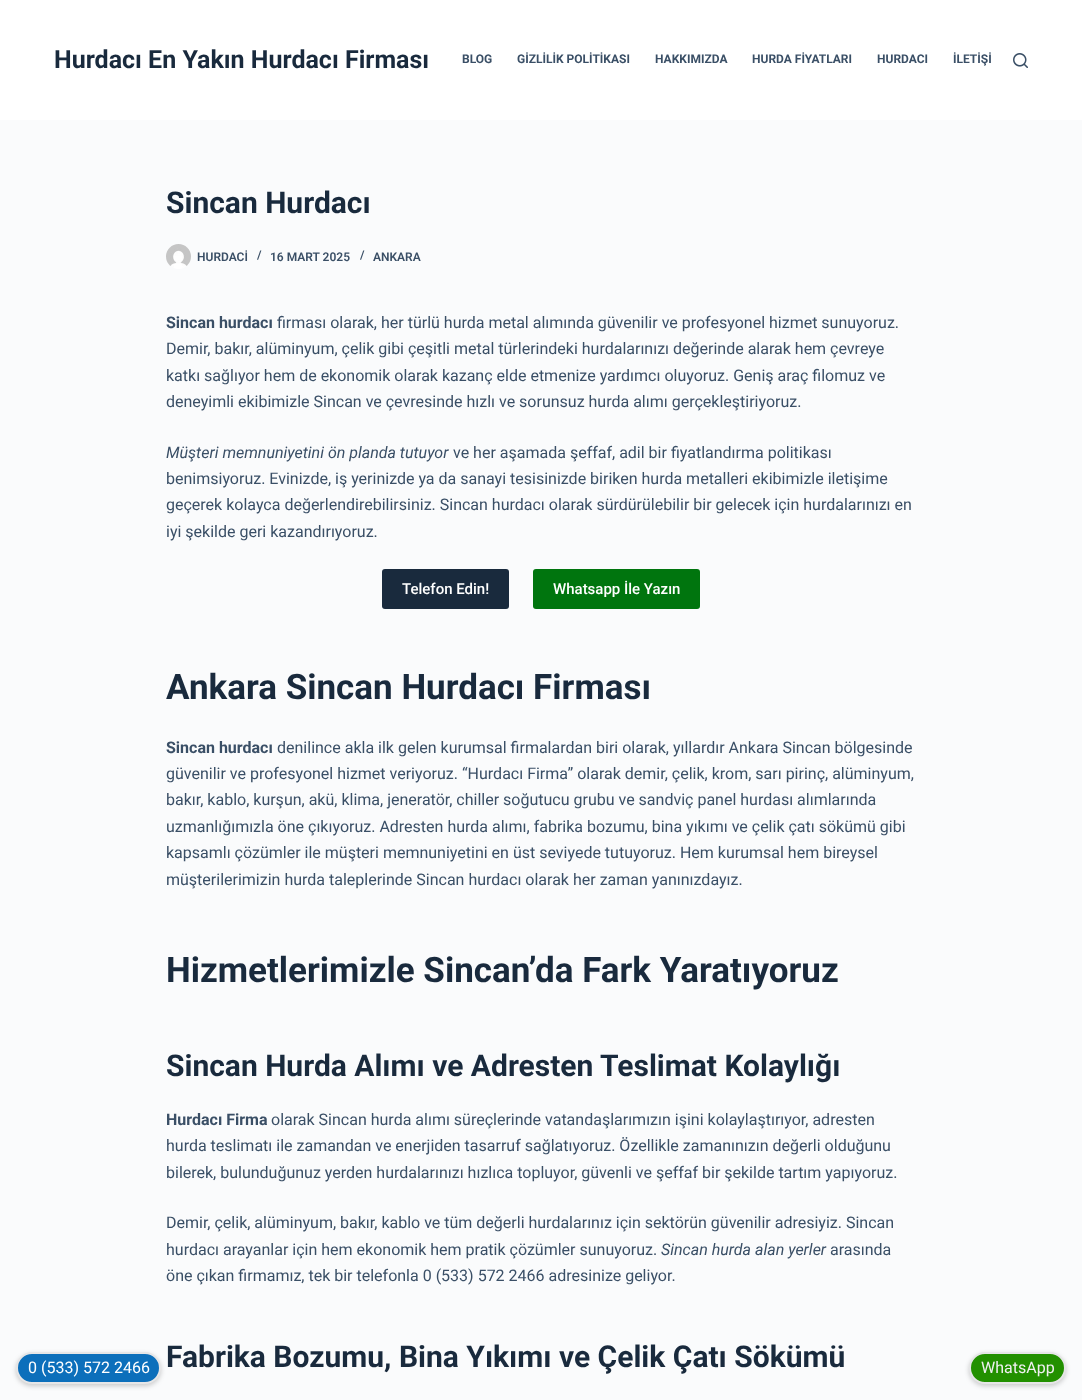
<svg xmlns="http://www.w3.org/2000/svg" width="1082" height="1400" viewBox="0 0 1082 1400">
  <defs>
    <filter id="blur1" x="-50%" y="-200%" width="200%" height="500%"><feGaussianBlur stdDeviation="2.5"/></filter>
  </defs>
  <rect width="100%" height="100%" fill="#fafbfc"/>
  <rect x="0" y="0" width="1082" height="120" fill="#ffffff"/>
  <text x="54" y="68" font-family="Roboto" font-size="25" font-weight="bold" fill="#192a3d">Hurdacı En Yakın Hurdacı Firması</text>
  <text x="462" y="63" font-family="Roboto" font-size="12" font-weight="bold" fill="#3a4f66">BLOG</text>
  <text x="517" y="63" font-family="Roboto" font-size="12" font-weight="bold" fill="#3a4f66">GİZLİLİK POLİTİKASI</text>
  <text x="655" y="63" font-family="Roboto" font-size="12" font-weight="bold" fill="#3a4f66">HAKKIMIZDA</text>
  <text x="752" y="63" font-family="Roboto" font-size="12" font-weight="bold" fill="#3a4f66">HURDA FİYATLARI</text>
  <text x="877" y="63" font-family="Roboto" font-size="12" font-weight="bold" fill="#3a4f66">HURDACI</text>
  <text x="953" y="63" font-family="Roboto" font-size="12" font-weight="bold" fill="#3a4f66">İLETİŞİ</text>
  <image x="1013" y="53" width="15" height="15" href="img1.png"/>
  <text x="166" y="213" font-family="Roboto" font-size="30" font-weight="bold" fill="#192a3d">Sincan Hurdacı</text>
  <image x="166" y="244" width="25" height="25" href="img2.png"/>
  <text x="197" y="261" font-family="Roboto" font-size="12" font-weight="600" fill="#3a4f66">HURDACİ</text>
  <text x="257" y="259" font-family="Roboto" font-size="12" font-weight="600" fill="#3a4f66">/</text>
  <text x="270" y="261" font-family="Roboto" font-size="12" font-weight="600" fill="#3a4f66">16 MART 2025</text>
  <text x="360" y="259" font-family="Roboto" font-size="12" font-weight="600" fill="#3a4f66">/</text>
  <text x="373" y="261" font-family="Roboto" font-size="12" font-weight="600" fill="#3a4f66">ANKARA</text>
  <text x="166" y="328" font-family="Roboto" font-size="16" font-weight="bold" fill="#3a4f66">Sincan hurdacı</text>
  <text x="277" y="328" font-family="Roboto" font-size="16" fill="#3a4f66">firması olarak, her türlü hurda metal alımında güvenilir ve profesyonel hizmet sunuyoruz.</text>
  <text x="166" y="354" font-family="Roboto" font-size="16" fill="#3a4f66">Demir, bakır, alüminyum, çelik gibi çeşitli metal türlerindeki hurdalarınızı değerinde alarak hem çevreye</text>
  <text x="166" y="381" font-family="Roboto" font-size="16" fill="#3a4f66">katkı sağlıyor hem de ekonomik olarak kazanç elde etmenize yardımcı oluyoruz. Geniş araç filomuz ve</text>
  <text x="166" y="407" font-family="Roboto" font-size="16" fill="#3a4f66">deneyimli ekibimizle Sincan ve çevresinde hızlı ve sorunsuz hurda alımı gerçekleştiriyoruz.</text>
  <text x="166" y="458" font-family="Roboto" font-size="16" font-style="italic" fill="#3a4f66">Müşteri memnuniyetini ön planda tutuyor</text>
  <text x="453" y="458" font-family="Roboto" font-size="16" fill="#3a4f66">ve her aşamada şeffaf, adil bir fiyatlandırma politikası</text>
  <text x="166" y="484" font-family="Roboto" font-size="16" fill="#3a4f66">benimsiyoruz. Evinizde, iş yerinizde ya da sanayi tesisinizde biriken hurda metalleri ekibimizle iletişime</text>
  <text x="166" y="510" font-family="Roboto" font-size="16" fill="#3a4f66">geçerek kolayca değerlendirebilirsiniz. Sincan hurdacı olarak sürdürülebilir bir gelecek için hurdalarınızı en</text>
  <text x="166" y="537" font-family="Roboto" font-size="16" fill="#3a4f66">iyi şekilde geri kazandırıyoruz.</text>
  <rect x="382" y="569" width="127" height="40" rx="3" fill="#192a3d"/>
  <text x="402" y="594" font-family="Roboto" font-size="15" font-weight="500" fill="#ffffff">Telefon Edin!</text>
  <rect x="533" y="569" width="167" height="40" rx="3" fill="#00750e"/>
  <text x="553" y="594" font-family="Roboto" font-size="15" font-weight="500" fill="#ffffff">Whatsapp İle Yazın</text>
  <text x="166" y="699" font-family="Roboto" font-size="35" font-weight="bold" fill="#192a3d">Ankara Sincan Hurdacı Firması</text>
  <text x="166" y="753" font-family="Roboto" font-size="16" font-weight="bold" fill="#3a4f66">Sincan hurdacı</text>
  <text x="277" y="753" font-family="Roboto" font-size="16" fill="#3a4f66">denilince akla ilk gelen kurumsal firmalardan biri olarak, yıllardır Ankara Sincan bölgesinde</text>
  <text x="166" y="779" font-family="Roboto" font-size="16" fill="#3a4f66">güvenilir ve profesyonel hizmet veriyoruz. “Hurdacı Firma” olarak demir, çelik, krom, sarı pirinç, alüminyum,</text>
  <text x="166" y="805" font-family="Roboto" font-size="16" fill="#3a4f66">bakır, kablo, kurşun, akü, klima, jeneratör, chiller soğutucu grubu ve sandviç panel hurdası alımlarında</text>
  <text x="166" y="832" font-family="Roboto" font-size="16" fill="#3a4f66">uzmanlığımızla öne çıkıyoruz. Adresten hurda alımı, fabrika bozumu, bina yıkımı ve çelik çatı sökümü gibi</text>
  <text x="166" y="858" font-family="Roboto" font-size="16" fill="#3a4f66">kapsamlı çözümler ile müşteri memnuniyetini en üst seviyede tutuyoruz. Hem kurumsal hem bireysel</text>
  <text x="166" y="885" font-family="Roboto" font-size="16" fill="#3a4f66">müşterilerimizin hurda taleplerinde Sincan hurdacı olarak her zaman yanınızdayız.</text>
  <text x="166" y="982" font-family="Roboto" font-size="35" font-weight="bold" fill="#192a3d">Hizmetlerimizle Sincan’da Fark Yaratıyoruz</text>
  <text x="166" y="1076" font-family="Roboto" font-size="30" font-weight="bold" fill="#192a3d">Sincan Hurda Alımı ve Adresten Teslimat Kolaylığı</text>
  <text x="166" y="1125" font-family="Roboto" font-size="16" font-weight="bold" fill="#3a4f66">Hurdacı Firma</text>
  <text x="271" y="1125" font-family="Roboto" font-size="16" fill="#3a4f66">olarak Sincan hurda alımı süreçlerinde vatandaşlarımızın işini kolaylaştırıyor, adresten</text>
  <text x="166" y="1151" font-family="Roboto" font-size="16" fill="#3a4f66">hurda teslimatı ile zamandan ve enerjiden tasarruf sağlatıyoruz. Özellikle zamanınızın değerli olduğunu</text>
  <text x="166" y="1178" font-family="Roboto" font-size="16" fill="#3a4f66">bilerek, bulunduğunuz yerden hurdalarınızı hızlıca topluyor, güvenli ve şeffaf bir şekilde tartım yapıyoruz.</text>
  <text x="166" y="1228" font-family="Roboto" font-size="16" fill="#3a4f66">Demir, çelik, alüminyum, bakır, kablo ve tüm değerli hurdalarınız için sektörün güvenilir adresiyiz. Sincan</text>
  <text x="166" y="1255" font-family="Roboto" font-size="16" fill="#3a4f66">hurdacı arayanlar için hem ekonomik hem pratik çözümler sunuyoruz.</text>
  <text x="661" y="1255" font-family="Roboto" font-size="16" font-style="italic" fill="#3a4f66">Sincan hurda alan yerler</text>
  <text x="830" y="1255" font-family="Roboto" font-size="16" fill="#3a4f66">arasında</text>
  <text x="166" y="1281" font-family="Roboto" font-size="16" fill="#3a4f66">öne çıkan firmamız, tek bir telefonla 0 (533) 572 2466 adresinize geliyor.</text>
  <text x="166" y="1367" font-family="Roboto" font-size="30" font-weight="bold" fill="#192a3d">Fabrika Bozumu, Bina Yıkımı ve Çelik Çatı Sökümü</text>
  <rect x="16" y="1354" width="145" height="32" rx="16" fill="#000000" fill-opacity="0.2" filter="url(#blur1)"/>
  <rect x="17" y="1353" width="143" height="30" rx="15" fill="#0c6fbb" stroke="#e6e6e7" stroke-width="2"/>
  <text x="28" y="1373" font-family="Roboto" font-size="16" fill="#ffffff">0 (533) 572 2466</text>
  <rect x="969" y="1354" width="97" height="32" rx="16" fill="#000000" fill-opacity="0.2" filter="url(#blur1)"/>
  <rect x="970" y="1353" width="95" height="30" rx="15" fill="#229000" stroke="#e6e6e7" stroke-width="2"/>
  <text x="981" y="1373" font-family="Roboto" font-size="16" fill="#f0f0f1">WhatsApp</text>
</svg>
